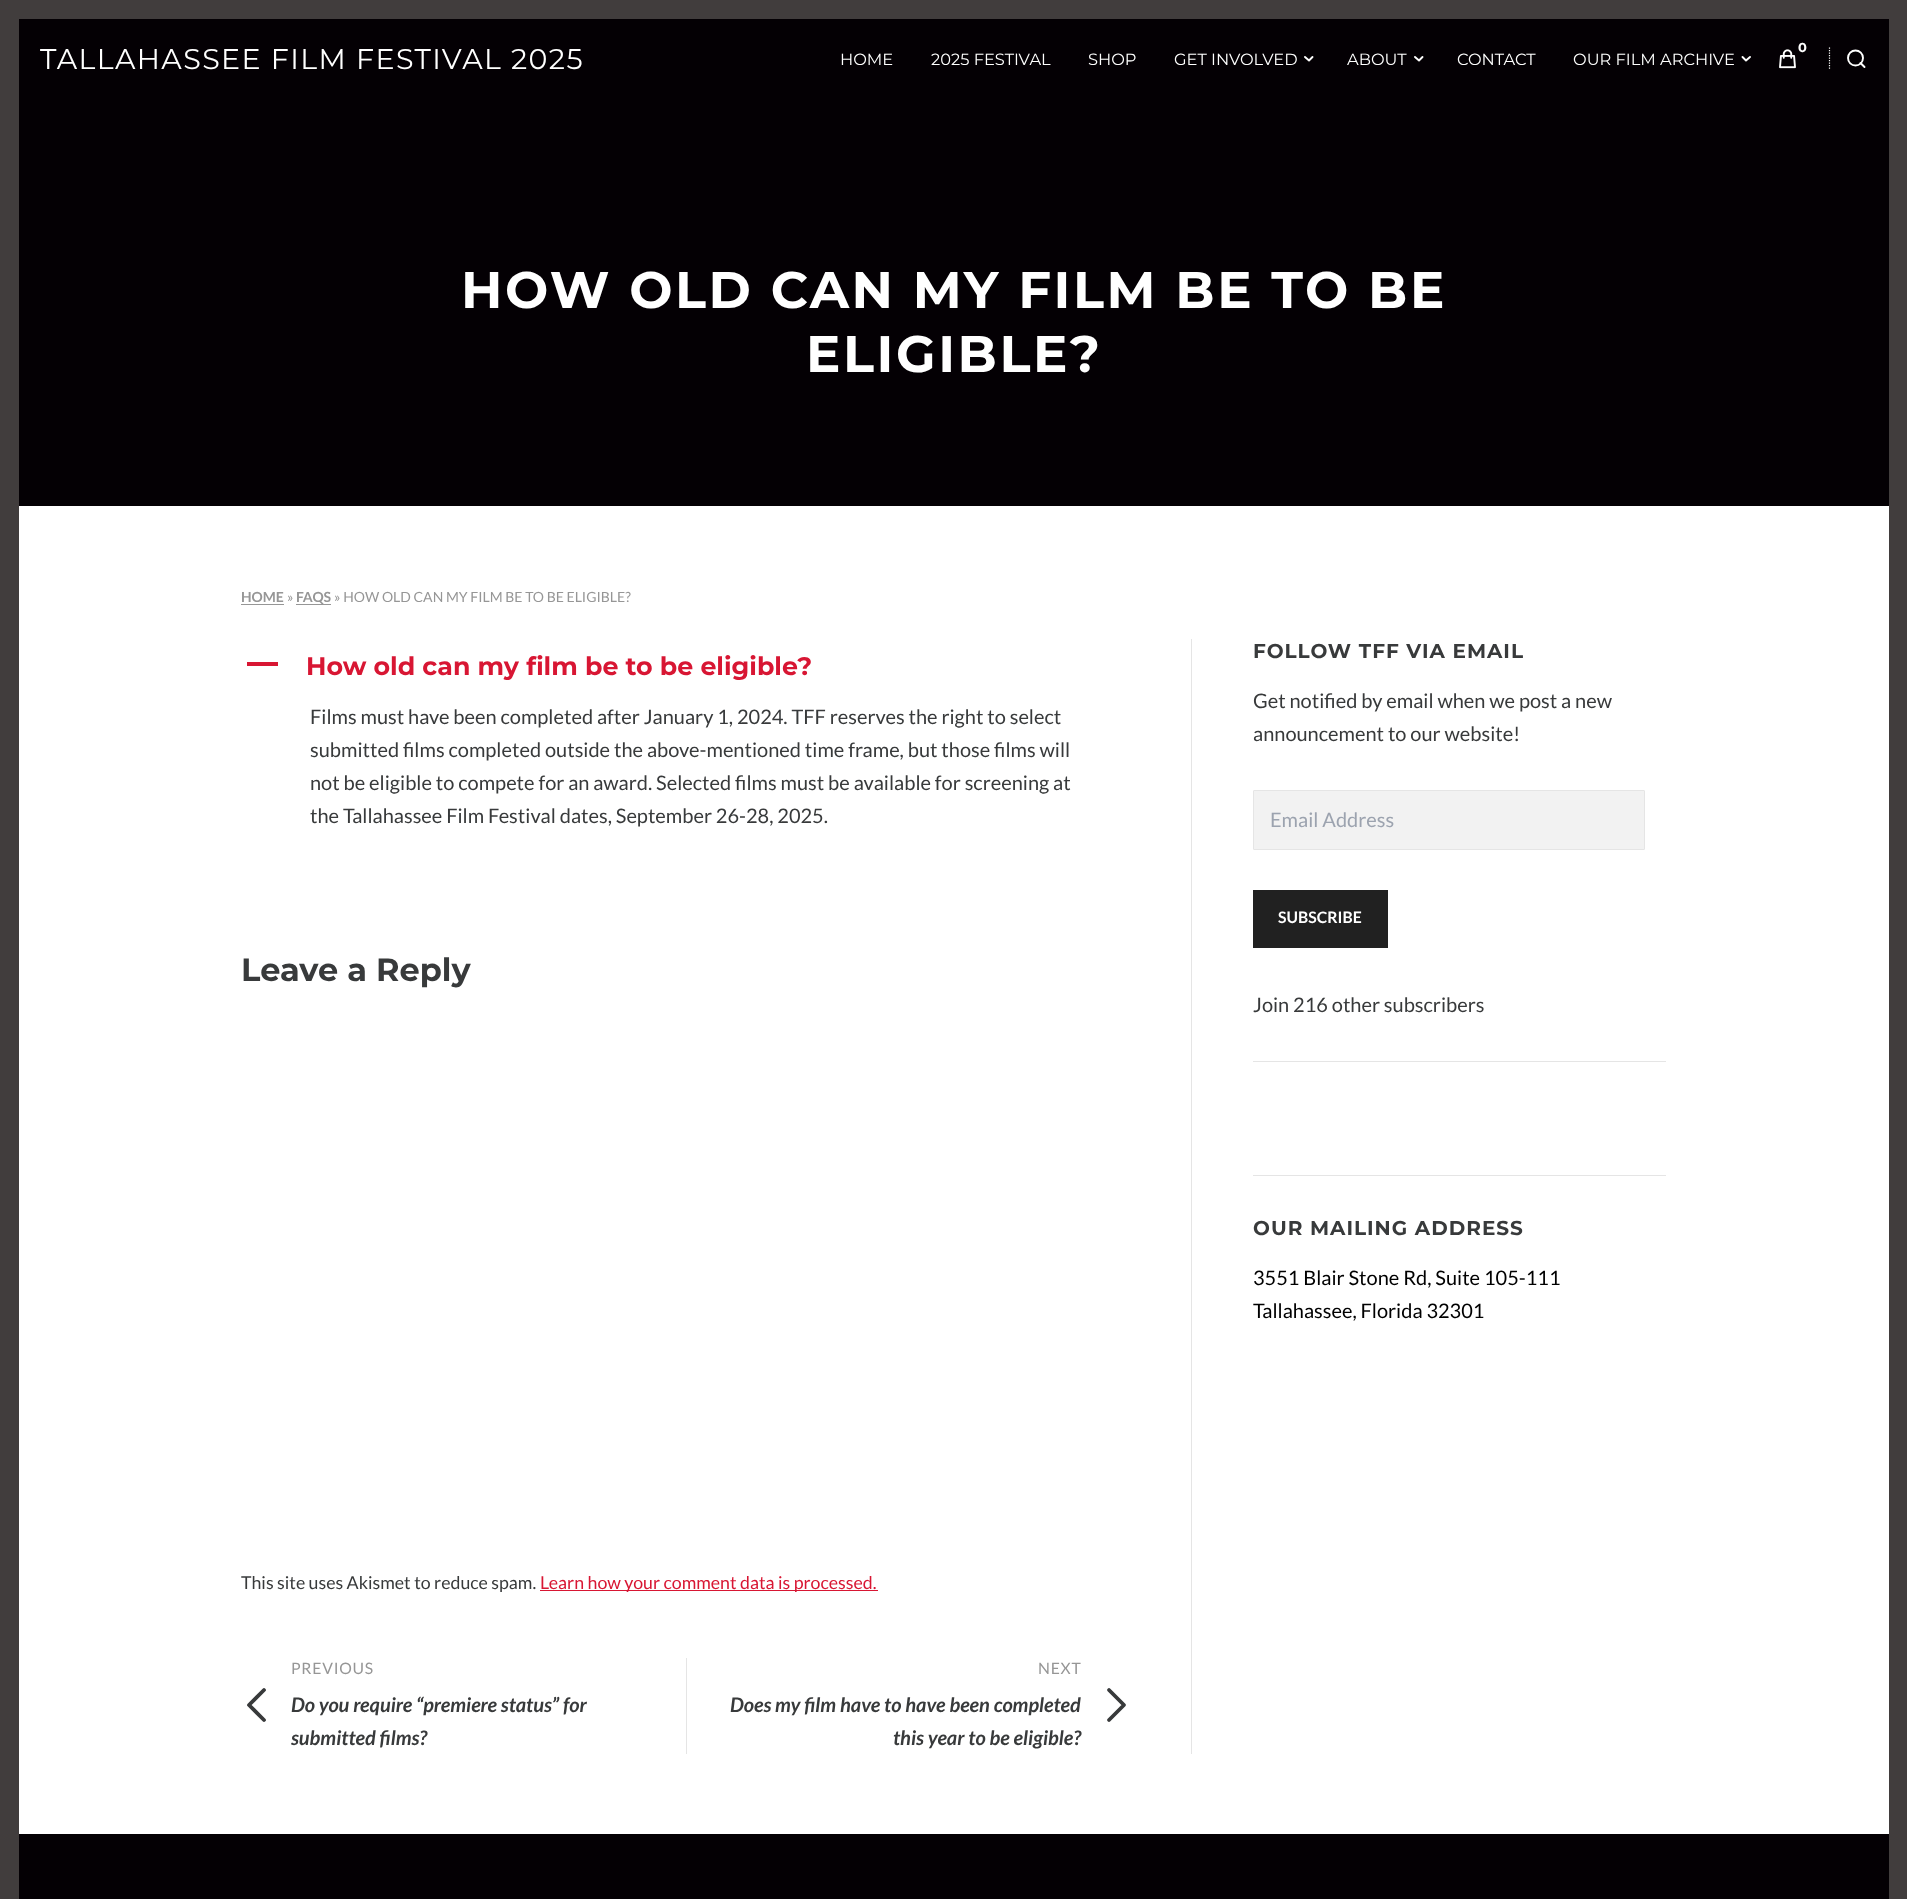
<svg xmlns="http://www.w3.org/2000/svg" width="1907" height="1899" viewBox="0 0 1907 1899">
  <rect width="100%" height="100%" fill="#413d3d"/>
  <rect x="19" y="506" width="1870" height="1328" fill="#ffffff"/>
  <rect x="19" y="19" width="1870" height="487" fill="#040004"/>
  <text x="40" y="69" font-family="Montserrat" font-size="28.5" letter-spacing="1.4" fill="#ffffff">TALLAHASSEE FILM FESTIVAL 2025</text>
  <text x="840" y="65" font-family="Montserrat" font-size="16.25" fill="#ffffff">HOME</text>
  <text x="931" y="65" font-family="Montserrat" font-size="16.25" fill="#ffffff">2025 FESTIVAL</text>
  <text x="1088" y="65" font-family="Montserrat" font-size="16.25" fill="#ffffff">SHOP</text>
  <text x="1174" y="65" font-family="Montserrat" font-size="16.25" fill="#ffffff">GET INVOLVED</text>
  <path d="M1305 57L1309 60.5L1312.5 57" fill="none" stroke="#ffffff" stroke-width="1.9" stroke-linecap="round" stroke-linejoin="round"/>
  <text x="1347" y="65" font-family="Montserrat" font-size="16.25" fill="#ffffff">ABOUT</text>
  <path d="M1415 57L1419 60.5L1422.5 57" fill="none" stroke="#ffffff" stroke-width="1.9" stroke-linecap="round" stroke-linejoin="round"/>
  <text x="1457" y="65" font-family="Montserrat" font-size="16.25" fill="#ffffff">CONTACT</text>
  <text x="1573" y="65" font-family="Montserrat" font-size="16.25" fill="#ffffff">OUR FILM ARCHIVE</text>
  <path d="M1742.5 57L1746 60.5L1750 57" fill="none" stroke="#ffffff" stroke-width="1.9" stroke-linecap="round" stroke-linejoin="round"/>
  <path d="M1829.5 47.5V70" fill="none" stroke="#ffffff" stroke-width="1.2" stroke-dasharray="1.25 1.25"/>
  <text x="1798" y="52" font-family="Montserrat" font-size="13" font-weight="bold" fill="#ffffff">0</text>
  <image x="1779" y="49" width="17" height="20" href="img1.png"/>
  <circle cx="1855.5" cy="58" r="7.5" fill="none" stroke="#ffffff" stroke-width="1.9"/>
  <path d="M1864.5 67L1860.5 63" fill="none" stroke="#ffffff" stroke-width="1.9" stroke-linecap="round" stroke-linejoin="round"/>
  <text x="461" y="308" font-family="Montserrat" font-size="51.3" font-weight="bold" letter-spacing="2.6" fill="#ffffff">HOW OLD CAN MY FILM BE TO BE</text>
  <text x="806" y="372" font-family="Montserrat" font-size="51.3" font-weight="bold" letter-spacing="2.6" fill="#ffffff">ELIGIBLE?</text>
  <text x="241" y="602" font-family="Lato" font-size="14" font-weight="bold" fill="#969696">HOME</text>
  <rect x="241" y="604" width="43" height="1" fill="#969696"/>
  <text x="287" y="602" font-family="Lato" font-size="14" fill="#969696">»</text>
  <text x="296" y="602" font-family="Lato" font-size="14" font-weight="bold" fill="#969696">FAQS</text>
  <rect x="296" y="604" width="35" height="1" fill="#969696"/>
  <text x="334" y="602" font-family="Lato" font-size="14" fill="#969696">» HOW OLD CAN MY FILM BE TO BE ELIGIBLE?</text>
  <rect x="247" y="662" width="31" height="4" fill="#d81633"/>
  <text x="306" y="675" font-family="Montserrat" font-size="25.3" font-weight="bold" fill="#d81633">How old can my film be to be eligible?</text>
  <text x="310" y="724" font-family="Lato" font-size="20" fill="#383a3b">Films must have been completed after January 1, 2024. TFF reserves the right to select</text>
  <text x="310" y="757" font-family="Lato" font-size="20" fill="#383a3b">submitted films completed outside the above-mentioned time frame, but those films will</text>
  <text x="310" y="790" font-family="Lato" font-size="20" fill="#383a3b">not be eligible to compete for an award. Selected films must be available for screening at</text>
  <text x="310" y="823" font-family="Lato" font-size="20" fill="#383a3b">the Tallahassee Film Festival dates, September 26-28, 2025.</text>
  <text x="241" y="981" font-family="Montserrat" font-size="32" font-weight="bold" fill="#383a3b">Leave a Reply</text>
  <text x="241" y="1589" font-family="Lato" font-size="17.75" fill="#383a3b">This site uses Akismet to reduce spam.</text>
  <rect x="540" y="1590" width="338" height="1" fill="#d81633"/>
  <text x="540" y="1589" font-family="Lato" font-size="17.75" fill="#d81633">Learn how your comment data is processed.</text>
  <rect x="686" y="1658" width="1" height="96" fill="#e5e5e5"/>
  <text x="291" y="1674" font-family="Lato" font-size="15.75" letter-spacing="0.75" fill="#969696">PREVIOUS</text>
  <path d="M264 1720L249 1705L264 1690" fill="none" stroke="#383a3b" stroke-width="3.8" stroke-linecap="round" stroke-linejoin="round"/>
  <text x="291" y="1712" font-family="Lato" font-size="20" font-weight="bold" font-style="italic" fill="#383a3b">Do you require “premiere status” for</text>
  <text x="291" y="1745" font-family="Lato" font-size="20" font-weight="bold" font-style="italic" fill="#383a3b">submitted films?</text>
  <text x="1038" y="1674" font-family="Lato" font-size="15.75" letter-spacing="0.75" fill="#969696">NEXT</text>
  <text x="730" y="1712" font-family="Lato" font-size="20" font-weight="bold" font-style="italic" fill="#383a3b">Does my film have to have been completed</text>
  <path d="M1109 1720L1124 1705L1109 1690" fill="none" stroke="#383a3b" stroke-width="3.8" stroke-linecap="round" stroke-linejoin="round"/>
  <text x="893" y="1745" font-family="Lato" font-size="20" font-weight="bold" font-style="italic" fill="#383a3b">this year to be eligible?</text>
  <rect x="1191" y="639" width="1" height="1115" fill="#e5e5e5"/>
  <text x="1253" y="658" font-family="Montserrat" font-size="20" font-weight="bold" letter-spacing="1" fill="#383a3b">FOLLOW TFF VIA EMAIL</text>
  <text x="1253" y="708" font-family="Lato" font-size="20" fill="#383a3b">Get notified by email when we post a new</text>
  <text x="1253" y="741" font-family="Lato" font-size="20" fill="#383a3b">announcement to our website!</text>
  <rect x="1253.5" y="790.5" width="391" height="59" rx="0.5" fill="#f2f2f2" stroke="#e5e5e5"/>
  <text x="1270" y="827" font-family="Lato" font-size="20" fill="#9ca3af">Email Address</text>
  <rect x="1254.5" y="891.5" width="132" height="55" fill="#212121" stroke="#212121" stroke-width="3"/>
  <text x="1278" y="923" font-family="Lato" font-size="15.75" font-weight="bold" fill="#ffffff">SUBSCRIBE</text>
  <text x="1253" y="1012" font-family="Lato" font-size="20" fill="#383a3b">Join 216 other subscribers</text>
  <rect x="1253" y="1061" width="413" height="1" fill="#e5e5e5"/>
  <rect x="1253" y="1175" width="413" height="1" fill="#e5e5e5"/>
  <text x="1253" y="1235" font-family="Montserrat" font-size="20" font-weight="bold" letter-spacing="1" fill="#383a3b">OUR MAILING ADDRESS</text>
  <text x="1253" y="1285" font-family="Lato" font-size="20" fill="#000000">3551 Blair Stone Rd, Suite 105-111</text>
  <text x="1253" y="1318" font-family="Lato" font-size="20" fill="#000000">Tallahassee, Florida 32301</text>
  <rect x="19" y="1834" width="1870" height="65" fill="#040004"/>
</svg>
